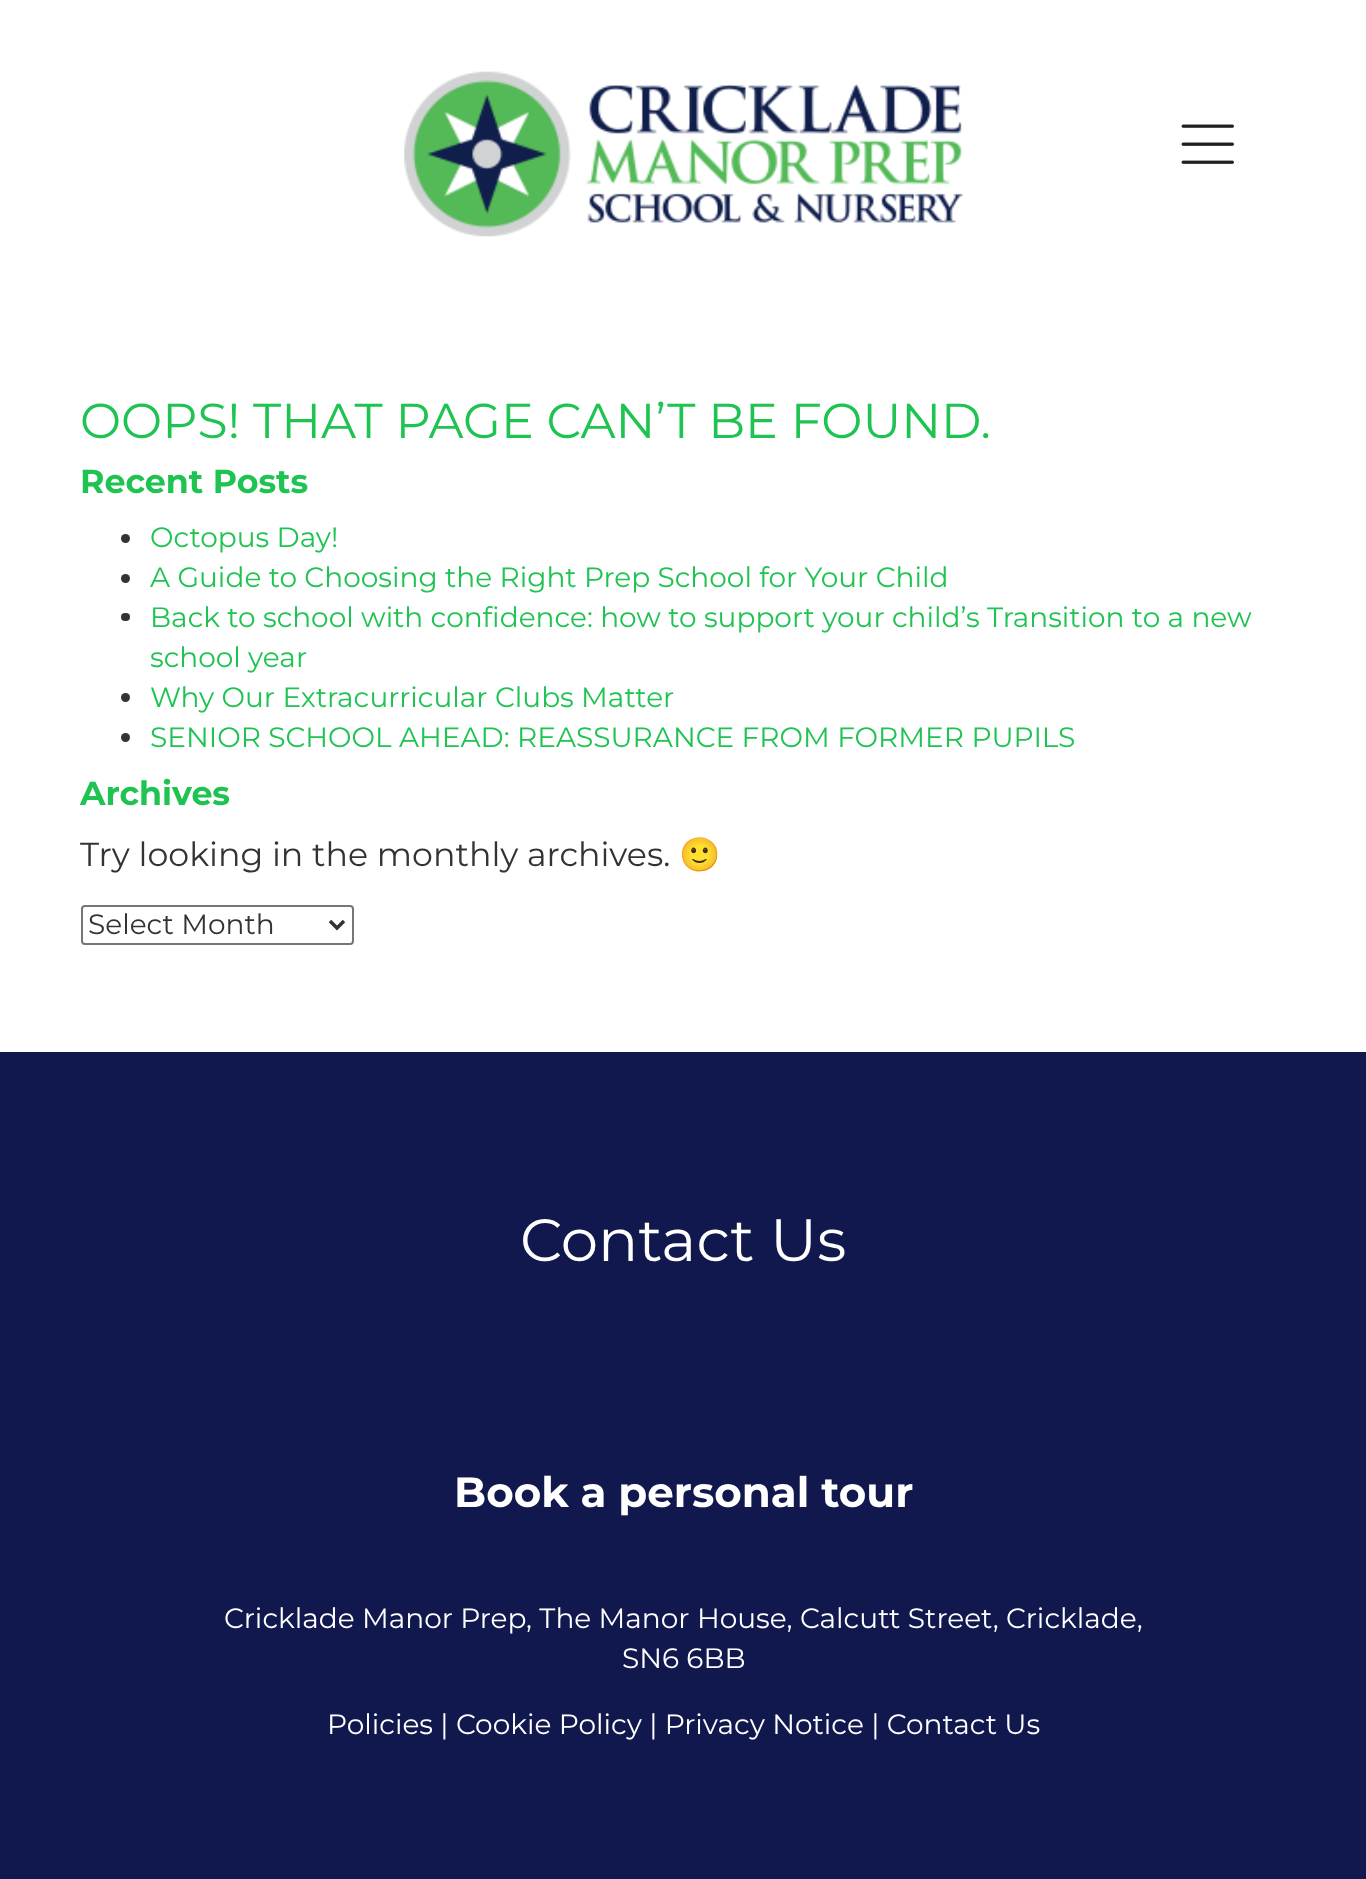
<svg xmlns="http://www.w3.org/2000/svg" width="1366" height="1879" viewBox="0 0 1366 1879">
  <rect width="100%" height="100%" fill="#ffffff"/>
  <image x="404" y="71" width="559" height="166" href="img1.png"/>
  <image x="1181" y="124" width="53" height="40" href="img2.png"/>
  <text x="80" y="438" font-family="Montserrat" font-size="49" fill="#1fc351">OOPS! THAT PAGE CAN’T BE FOUND.</text>
  <text x="80" y="493" font-family="Montserrat" font-size="33.25" font-weight="bold" fill="#1fc351">Recent Posts</text>
  <circle cx="125.5" cy="538.5" r="4.5" fill="#333333"/>
  <text x="150" y="547" font-family="Montserrat" font-size="28" fill="#1fc351">Octopus Day!</text>
  <circle cx="125.5" cy="578.5" r="4.5" fill="#333333"/>
  <text x="150" y="587" font-family="Montserrat" font-size="28" fill="#1fc351">A Guide to Choosing the Right Prep School for Your Child</text>
  <rect x="121" y="613" width="9" height="8" rx="4" fill="#333333"/>
  <text x="150" y="627" font-family="Montserrat" font-size="28" fill="#1fc351">Back to school with confidence: how to support your child’s Transition to a new</text>
  <text x="150" y="667" font-family="Montserrat" font-size="28" fill="#1fc351">school year</text>
  <circle cx="125.5" cy="697.5" r="4.5" fill="#333333"/>
  <text x="150" y="707" font-family="Montserrat" font-size="28" fill="#1fc351">Why Our Extracurricular Clubs Matter</text>
  <circle cx="125.5" cy="737.5" r="4.5" fill="#333333"/>
  <text x="150" y="747" font-family="Montserrat" font-size="28" fill="#1fc351">SENIOR SCHOOL AHEAD: REASSURANCE FROM FORMER PUPILS</text>
  <text x="80" y="805" font-family="Montserrat" font-size="33.25" font-weight="bold" fill="#1fc351">Archives</text>
  <text x="80" y="866" font-family="Montserrat" font-size="33.25" fill="#333333">Try looking in the monthly archives.</text>
  <text x="679" y="866" font-family="Noto Color Emoji" font-size="33.25" fill="#333333">🙂</text>
  <rect x="82" y="906" width="271" height="38" rx="3" fill="none" stroke="#767676" stroke-width="2"/>
  <path d="M330 921L337 928L344 921" fill="none" stroke="#333333" stroke-width="3.5"/>
  <text x="88" y="934" font-family="Montserrat" font-size="28" fill="#333333">Select Month</text>
  <rect x="0" y="1052" width="1366" height="827" fill="#11184d"/>
  <text x="520" y="1261" font-family="Montserrat" font-size="59.5" fill="#ffffff">Contact Us</text>
  <text x="454" y="1507" font-family="Montserrat" font-size="42" font-weight="bold" fill="#ffffff">Book a personal tour</text>
  <text x="224" y="1628" font-family="Montserrat" font-size="28" fill="#ffffff">Cricklade Manor Prep, The Manor House, Calcutt Street, Cricklade,</text>
  <text x="622" y="1668" font-family="Montserrat" font-size="28" fill="#ffffff">SN6 6BB</text>
  <text x="327" y="1734" font-family="Montserrat" font-size="28" fill="#ffffff">Policies | Cookie Policy | Privacy Notice | Contact Us</text>
</svg>
